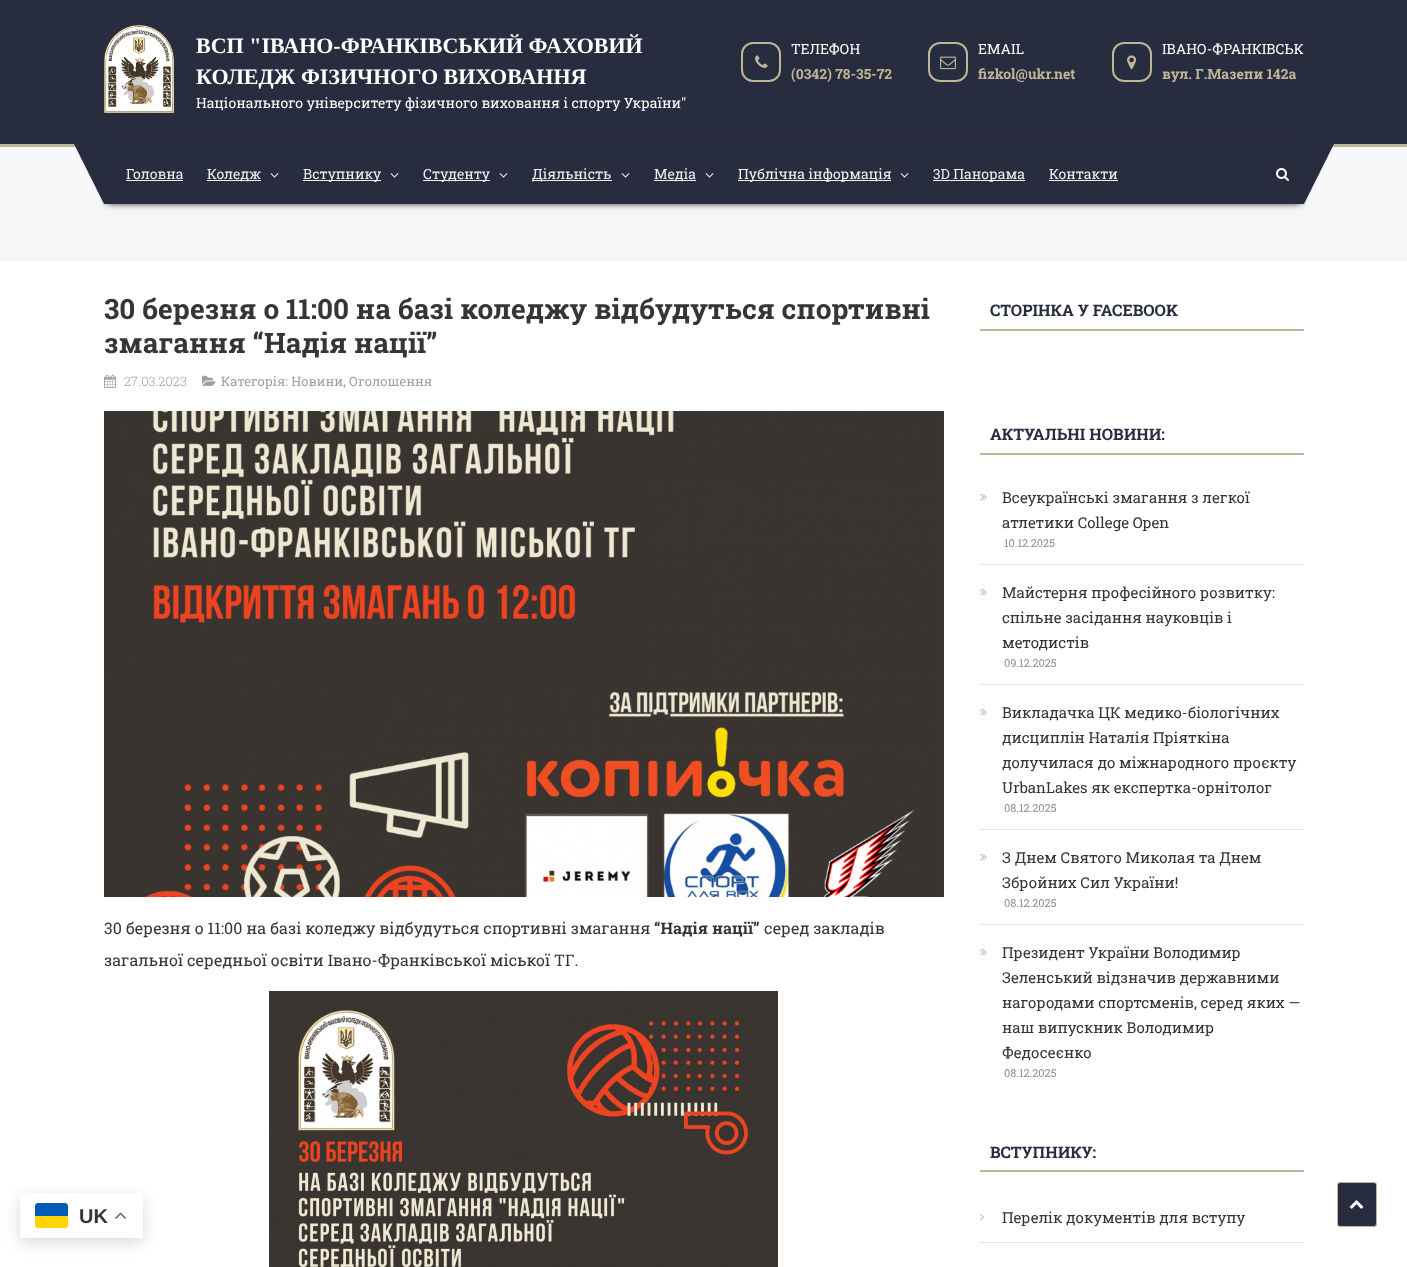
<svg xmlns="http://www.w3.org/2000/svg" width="1407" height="1267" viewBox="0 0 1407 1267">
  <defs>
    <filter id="blur1" x="-50%" y="-200%" width="200%" height="500%"><feGaussianBlur stdDeviation="7.5"/></filter>
    <filter id="blur2" x="-50%" y="-200%" width="200%" height="500%"><feGaussianBlur stdDeviation="3.5"/></filter>
  </defs>
  <rect width="100%" height="100%" fill="#ffffff"/>
  <rect x="20" y="1198" width="123" height="45" rx="2" fill="#000000" fill-opacity="0.15" filter="url(#blur1)"/>
  <rect x="20" y="1193" width="123" height="45" rx="2" fill="#ffffff"/>
  <rect x="35" y="1203" width="33" height="25" rx="3" fill="#ffd500"/>
  <path d="M38 1203H65C66.5 1203 68 1204.5 68 1206V1216H35V1206C35 1204.5 36.5 1203 38 1203Z" fill="#005bbb"/>
  <text x="79" y="1223" font-family="Liberation Sans" font-size="20" font-weight="bold" fill="#353535">UK</text>
  <image x="115" y="1212" width="11" height="7" href="img1.png"/>
  <rect x="0" y="0" width="1407" height="144" fill="#272c3f"/>
  <rect x="0" y="144" width="1407" height="3" fill="#c0b596"/>
  <image x="104" y="25" width="70" height="88" href="img2.png"/>
  <text x="196" y="53" font-family="Liberation Serif" font-size="22" font-weight="bold" fill="#ffffff">ВСП "ІВАНО-ФРАНКІВСЬКИЙ ФАХОВИЙ</text>
  <text x="196" y="84" font-family="Liberation Serif" font-size="22" font-weight="bold" fill="#ffffff">КОЛЕДЖ ФІЗИЧНОГО ВИХОВАННЯ</text>
  <text x="196" y="108" font-family="Roboto Slab" font-size="14" fill="#ffffff">Національного університету фізичного виховання і спорту України"</text>
  <rect x="742" y="43" width="38" height="38" rx="11" fill="none" stroke="#c0b596" stroke-width="2"/>
  <image x="755" y="55" width="13" height="13" href="img3.png"/>
  <text x="791" y="54" font-family="Roboto Slab" font-size="14" fill="#ffffff">ТЕЛЕФОН</text>
  <text x="791" y="79" font-family="Roboto Slab" font-size="14" font-weight="bold" fill="#c0b596">(0342) 78-35-72</text>
  <rect x="929" y="43" width="38" height="38" rx="11" fill="none" stroke="#c0b596" stroke-width="2"/>
  <image x="940" y="56" width="16" height="14" href="img4.png"/>
  <text x="978" y="54" font-family="Roboto Slab" font-size="14" fill="#ffffff">EMAIL</text>
  <text x="978" y="79" font-family="Roboto Slab" font-size="14" font-weight="bold" fill="#c0b596">fizkol@ukr.net</text>
  <rect x="1113" y="43" width="38" height="38" rx="11" fill="none" stroke="#c0b596" stroke-width="2"/>
  <image x="1127" y="55" width="10" height="15" href="img5.png"/>
  <text x="1162" y="54" font-family="Roboto Slab" font-size="14" fill="#ffffff">ІВАНО-ФРАНКІВСЬК</text>
  <text x="1162" y="79" font-family="Roboto Slab" font-size="14" font-weight="bold" fill="#c0b596">вул. Г.Мазепи 142а</text>
  <rect x="0" y="147" width="1407" height="115" fill="#f6f6f6"/>
  <rect x="107" y="149" width="1194" height="54" fill="#000000" filter="url(#blur2)"/>
  <rect x="104" y="144" width="1200" height="60" fill="#272c3f"/>
  <path d="M74 144H134L104 204Z" fill="#272c3f"/>
  <text x="126" y="179" font-family="Roboto Slab" font-size="14" fill="#f0f0f0">Головна</text>
  <rect x="126" y="180" width="57" height="1" fill="#f0f0f0"/>
  <rect x="207" y="180" width="54" height="1" fill="#f0f0f0"/>
  <text x="207" y="179" font-family="Roboto Slab" font-size="14" fill="#f0f0f0">Коледж</text>
  <image x="270" y="173" width="9" height="5" href="img6.png"/>
  <rect x="303" y="180" width="78" height="1" fill="#f0f0f0"/>
  <text x="303" y="179" font-family="Roboto Slab" font-size="14" fill="#f0f0f0">Вступнику</text>
  <image x="390" y="173" width="9" height="5" href="img6.png"/>
  <rect x="423" y="180" width="67" height="1" fill="#f0f0f0"/>
  <text x="423" y="179" font-family="Roboto Slab" font-size="14" fill="#f0f0f0">Студенту</text>
  <image x="499" y="173" width="9" height="5" href="img6.png"/>
  <rect x="532" y="180" width="80" height="1" fill="#f0f0f0"/>
  <text x="532" y="179" font-family="Roboto Slab" font-size="14" fill="#f0f0f0">Діяльність</text>
  <image x="621" y="173" width="9" height="5" href="img6.png"/>
  <rect x="654" y="180" width="42" height="1" fill="#f0f0f0"/>
  <text x="654" y="179" font-family="Roboto Slab" font-size="14" fill="#f0f0f0">Медіа</text>
  <image x="705" y="173" width="9" height="5" href="img6.png"/>
  <rect x="738" y="180" width="153" height="1" fill="#f0f0f0"/>
  <text x="738" y="179" font-family="Roboto Slab" font-size="14" fill="#f0f0f0">Публічна інформація</text>
  <image x="900" y="173" width="9" height="5" href="img6.png"/>
  <rect x="933" y="180" width="92" height="1" fill="#f0f0f0"/>
  <text x="933" y="179" font-family="Roboto Slab" font-size="14" fill="#f0f0f0">3D Панорама</text>
  <text x="1049" y="179" font-family="Roboto Slab" font-size="14" fill="#f0f0f0">Контакти</text>
  <rect x="1049" y="180" width="69" height="1" fill="#f0f0f0"/>
  <path d="M1274 144H1334L1304 204Z" fill="#272c3f"/>
  <image x="1276" y="168" width="13" height="13" href="img7.png"/>
  <text x="104" y="319" font-family="Roboto Slab" font-size="28" font-weight="bold" fill="#353535">30 березня о 11:00 на базі коледжу відбудуться спортивні</text>
  <text x="104" y="353" font-family="Roboto Slab" font-size="28" font-weight="bold" fill="#353535">змагання “Надія нації”</text>
  <image x="104" y="374" width="13" height="14" href="img8.png"/>
  <text x="124" y="386" font-family="Roboto Slab" font-size="13" font-weight="300" fill="#9f9f9f">27.03.2023</text>
  <image x="202" y="375" width="14" height="11" href="img9.png"/>
  <text x="221" y="386" font-family="Roboto Slab" font-size="13" fill="#9f9f9f">Категорія: Новини, Оголошення</text>
  <image x="104" y="411" width="840" height="486" href="img10.png"/>
  <text x="104" y="934" font-family="Roboto Slab" font-size="16" fill="#353535">30 березня о 11:00 на базі коледжу відбудуться спортивні змагання</text>
  <text x="654" y="934" font-family="Roboto Slab" font-size="16" font-weight="bold" fill="#353535">“Надія нації”</text>
  <text x="764" y="934" font-family="Roboto Slab" font-size="16" fill="#353535">серед закладів</text>
  <text x="104" y="966" font-family="Roboto Slab" font-size="16" fill="#353535">загальної середньої освіти Івано-Франківської міської ТГ.</text>
  <image x="269" y="991" width="509" height="276" href="img11.png"/>
  <rect x="980" y="329" width="324" height="2" fill="#c0b596"/>
  <text x="990" y="316" font-family="Roboto Slab" font-size="16" font-weight="bold" fill="#272c3f">СТОРІНКА У FACEBOOK</text>
  <rect x="980" y="453" width="324" height="2" fill="#c0b596"/>
  <text x="990" y="440" font-family="Roboto Slab" font-size="16" font-weight="bold" fill="#272c3f">АКТУАЛЬНІ НОВИНИ:</text>
  <rect x="980" y="564" width="324" height="1" fill="#e6e6e6"/>
  <image x="980" y="493" width="7" height="8" href="img12.png"/>
  <text x="1002" y="503" font-family="Roboto Slab" font-size="15" fill="#353535">Всеукраїнські змагання з легкої</text>
  <text x="1002" y="528" font-family="Roboto Slab" font-size="15" fill="#353535">атлетики College Open</text>
  <text x="1004" y="547" font-family="Roboto Slab" font-size="11" fill="#8f8f8f">10.12.2025</text>
  <rect x="980" y="684" width="324" height="1" fill="#e6e6e6"/>
  <image x="980" y="588" width="7" height="8" href="img12.png"/>
  <text x="1002" y="598" font-family="Roboto Slab" font-size="15" fill="#353535">Майстерня професійного розвитку:</text>
  <text x="1002" y="623" font-family="Roboto Slab" font-size="15" fill="#353535">спільне засідання науковців і</text>
  <text x="1002" y="648" font-family="Roboto Slab" font-size="15" fill="#353535">методистів</text>
  <text x="1004" y="667" font-family="Roboto Slab" font-size="11" fill="#8f8f8f">09.12.2025</text>
  <rect x="980" y="829" width="324" height="1" fill="#e6e6e6"/>
  <image x="980" y="708" width="7" height="8" href="img12.png"/>
  <text x="1002" y="718" font-family="Roboto Slab" font-size="15" fill="#353535">Викладачка ЦК медико-біологічних</text>
  <text x="1002" y="743" font-family="Roboto Slab" font-size="15" fill="#353535">дисциплін Наталія Пріяткіна</text>
  <text x="1002" y="768" font-family="Roboto Slab" font-size="15" fill="#353535">долучилася до міжнародного проєкту</text>
  <text x="1002" y="793" font-family="Roboto Slab" font-size="15" fill="#353535">UrbanLakes як експертка-орнітолог</text>
  <text x="1004" y="812" font-family="Roboto Slab" font-size="11" fill="#8f8f8f">08.12.2025</text>
  <rect x="980" y="924" width="324" height="1" fill="#e6e6e6"/>
  <image x="980" y="853" width="7" height="8" href="img12.png"/>
  <text x="1002" y="863" font-family="Roboto Slab" font-size="15" fill="#353535">З Днем Святого Миколая та Днем</text>
  <text x="1002" y="888" font-family="Roboto Slab" font-size="15" fill="#353535">Збройних Сил України!</text>
  <text x="1004" y="907" font-family="Roboto Slab" font-size="11" fill="#8f8f8f">08.12.2025</text>
  <image x="980" y="948" width="7" height="8" href="img12.png"/>
  <text x="1002" y="958" font-family="Roboto Slab" font-size="15" fill="#353535">Президент України Володимир</text>
  <text x="1002" y="983" font-family="Roboto Slab" font-size="15" fill="#353535">Зеленський відзначив державними</text>
  <text x="1002" y="1008" font-family="Roboto Slab" font-size="15" fill="#353535">нагородами спортсменів, серед яких —</text>
  <text x="1002" y="1033" font-family="Roboto Slab" font-size="15" fill="#353535">наш випускник Володимир</text>
  <text x="1002" y="1058" font-family="Roboto Slab" font-size="15" fill="#353535">Федосеєнко</text>
  <text x="1004" y="1077" font-family="Roboto Slab" font-size="11" fill="#8f8f8f">08.12.2025</text>
  <rect x="980" y="1170" width="324" height="2" fill="#c0b596"/>
  <text x="990" y="1158" font-family="Roboto Slab" font-size="16" font-weight="bold" fill="#272c3f">ВСТУПНИКУ:</text>
  <rect x="980" y="1242" width="324" height="1" fill="#e6e6e6"/>
  <image x="980" y="1213" width="4" height="8" href="img13.png"/>
  <text x="1002" y="1223" font-family="Roboto Slab" font-size="15" fill="#353535">Перелік документів для вступу</text>
  <rect x="1337.5" y="1182.5" width="39" height="44" rx="2.5" fill="#272c3f" stroke="#c0b596"/>
  <image x="1349" y="1200" width="15" height="9" href="img14.png"/>
</svg>
